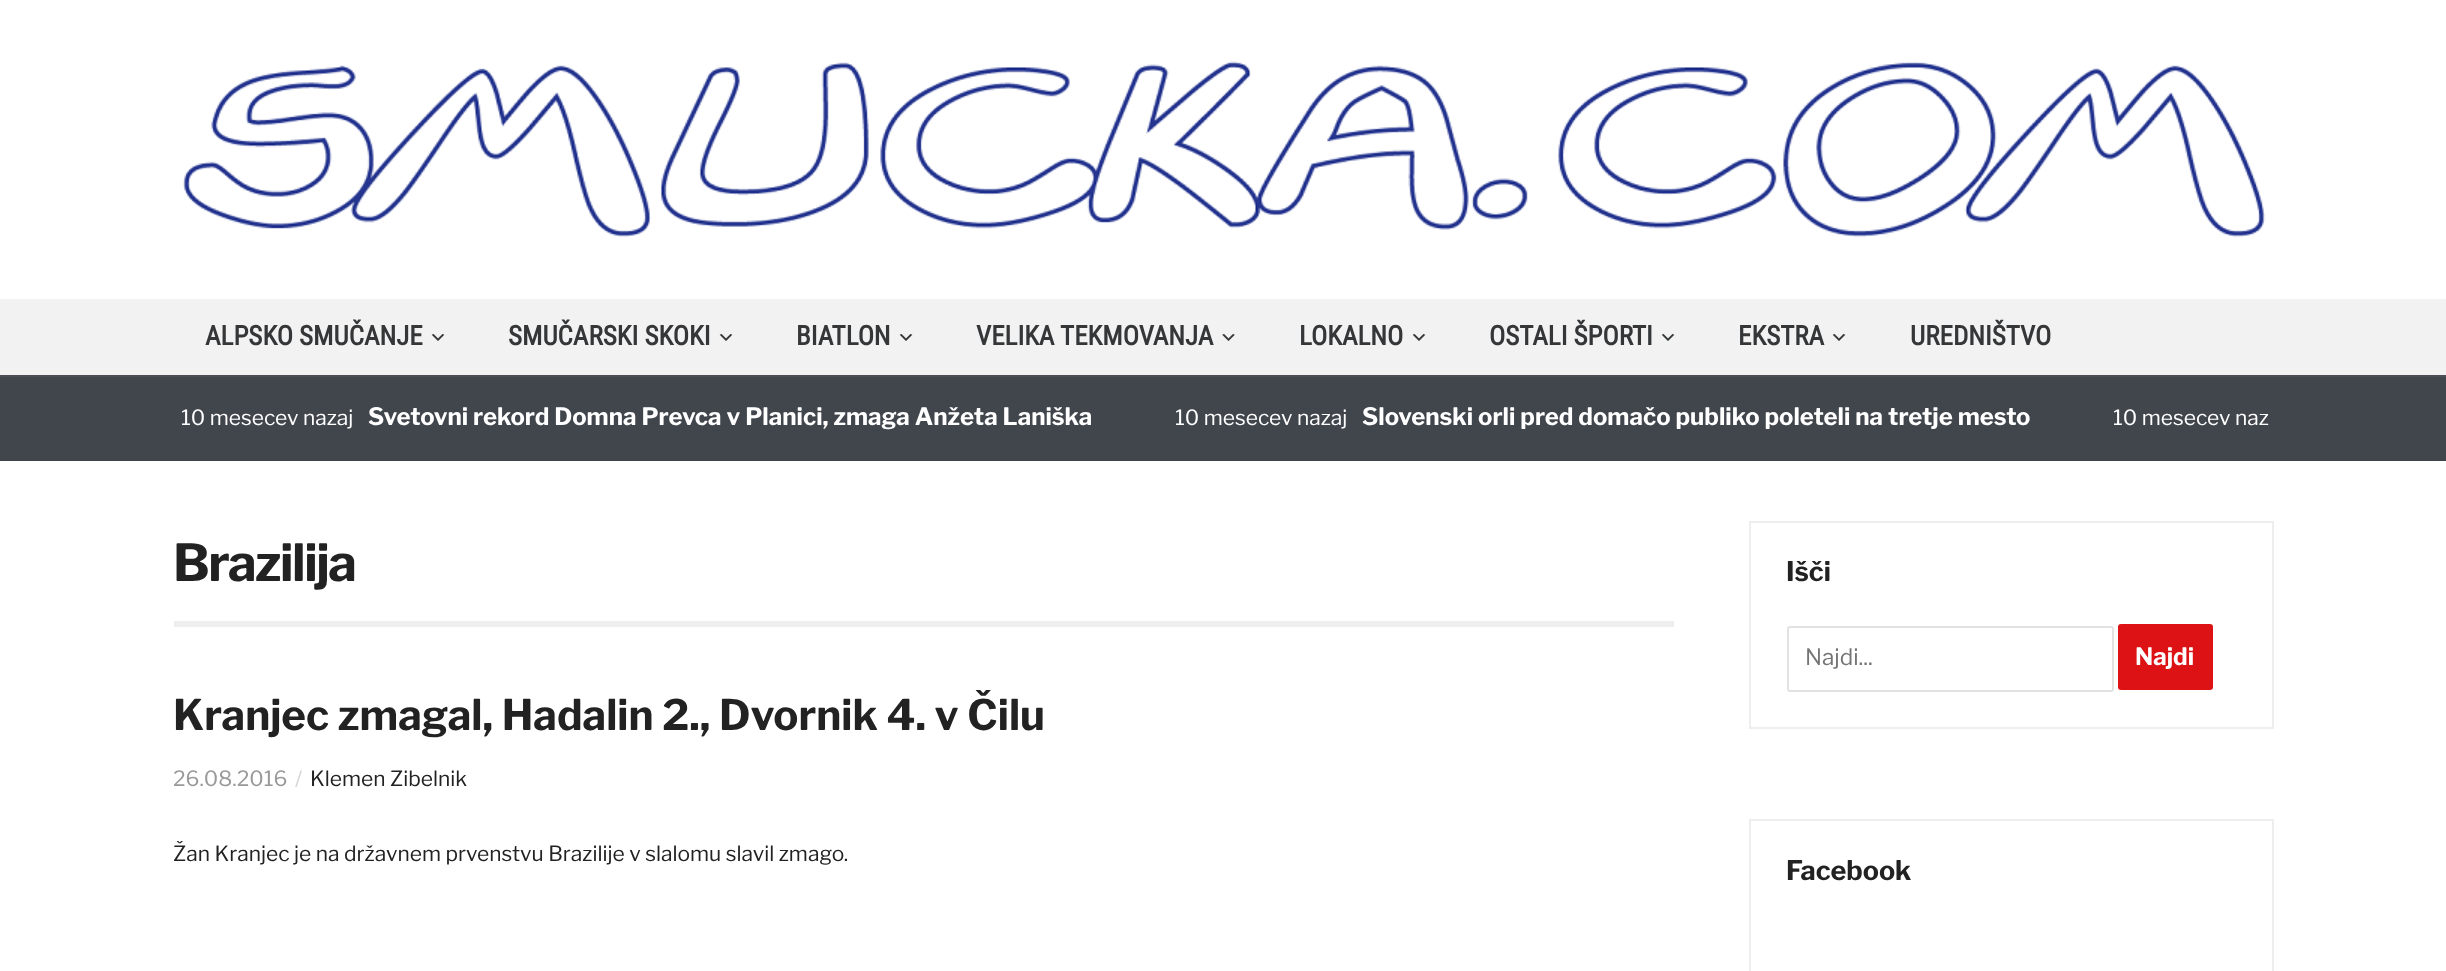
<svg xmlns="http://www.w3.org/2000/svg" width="2446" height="971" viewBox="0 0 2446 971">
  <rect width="100%" height="100%" fill="#ffffff"/>
  <image x="183" y="61" width="2083" height="177" href="img1.png"/>
  <rect x="0" y="299" width="2446" height="76" fill="#f2f2f2"/>
  <text x="205" y="345" font-family="Roboto Condensed" font-size="27" font-weight="bold" fill="#343638">ALPSKO SMUČANJE</text>
  <image x="431" y="334" width="14" height="7" href="img2.png"/>
  <text x="508" y="345" font-family="Roboto Condensed" font-size="27" font-weight="bold" fill="#343638">SMUČARSKI SKOKI</text>
  <image x="719" y="334" width="14" height="7" href="img2.png"/>
  <text x="796" y="345" font-family="Roboto Condensed" font-size="27" font-weight="bold" fill="#343638">BIATLON</text>
  <image x="899" y="334" width="14" height="7" href="img2.png"/>
  <text x="976" y="345" font-family="Roboto Condensed" font-size="27" font-weight="bold" fill="#343638">VELIKA TEKMOVANJA</text>
  <image x="1222" y="334" width="13" height="7" href="img3.png"/>
  <text x="1299" y="345" font-family="Roboto Condensed" font-size="27" font-weight="bold" fill="#343638">LOKALNO</text>
  <image x="1412" y="334" width="14" height="7" href="img2.png"/>
  <text x="1489" y="345" font-family="Roboto Condensed" font-size="27" font-weight="bold" fill="#343638">OSTALI ŠPORTI</text>
  <image x="1661" y="334" width="14" height="7" href="img2.png"/>
  <text x="1738" y="345" font-family="Roboto Condensed" font-size="27" font-weight="bold" fill="#343638">EKSTRA</text>
  <image x="1832" y="334" width="14" height="7" href="img2.png"/>
  <text x="1910" y="345" font-family="Roboto Condensed" font-size="27" font-weight="bold" fill="#343638">UREDNIŠTVO</text>
  <rect x="0" y="377" width="2446" height="84" fill="#41454c"/>
  <rect x="0" y="375" width="2446" height="2" fill="#4b4e55"/>
  <text x="181" y="425" font-family="Libre Franklin" font-size="21" fill="#ffffff">10 mesecev nazaj</text>
  <text x="368" y="425" font-family="Libre Franklin" font-size="24" font-weight="bold" fill="#ffffff">Svetovni rekord Domna Prevca v Planici, zmaga Anžeta Laniška</text>
  <text x="1175" y="425" font-family="Libre Franklin" font-size="21" fill="#ffffff">10 mesecev nazaj</text>
  <text x="1362" y="425" font-family="Libre Franklin" font-size="24" font-weight="bold" fill="#ffffff">Slovenski orli pred domačo publiko poleteli na tretje mesto</text>
  <text x="2113" y="425" font-family="Libre Franklin" font-size="21" fill="#ffffff">10 mesecev naz</text>
  <rect x="174" y="621" width="1500" height="6" fill="#eeeeee"/>
  <text x="173" y="581" font-family="Libre Franklin" font-size="51" font-weight="bold" letter-spacing="-1.5" fill="#222222">Brazilija</text>
  <text x="173" y="730" font-family="Libre Franklin" font-size="42" font-weight="bold" fill="#222222">Kranjec zmagal, Hadalin 2., Dvornik 4. v Čilu</text>
  <text x="173" y="786" font-family="Libre Franklin" font-size="21" fill="#999999">26.08.2016</text>
  <text x="295" y="786" font-family="Libre Franklin" font-size="21" fill="#d5d5d5">/</text>
  <text x="310" y="786" font-family="Libre Franklin" font-size="21" fill="#222222">Klemen Zibelnik</text>
  <text x="173" y="861" font-family="Libre Franklin" font-size="21" fill="#222222">Žan Kranjec je na državnem prvenstvu Brazilije v slalomu slavil zmago.</text>
  <rect x="1750" y="522" width="523" height="206" fill="none" stroke="#eeeeee" stroke-width="2"/>
  <text x="1786" y="581" font-family="Libre Franklin" font-size="27" font-weight="bold" fill="#222222">Išči</text>
  <rect x="1788" y="627" width="325" height="64" rx="2" fill="none" stroke="#e2e2e2" stroke-width="2"/>
  <text x="1805" y="665" font-family="Libre Franklin" font-size="22.5" fill="#757575">Najdi...</text>
  <rect x="2118" y="624" width="95" height="66" rx="3" fill="#dc1214"/>
  <text x="2135" y="665" font-family="Libre Franklin" font-size="24" font-weight="bold" fill="#ffffff">Najdi</text>
  <rect x="1750" y="820" width="523" height="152" fill="none" stroke="#eeeeee" stroke-width="2"/>
  <text x="1786" y="880" font-family="Libre Franklin" font-size="27" font-weight="bold" fill="#222222">Facebook</text>
</svg>
